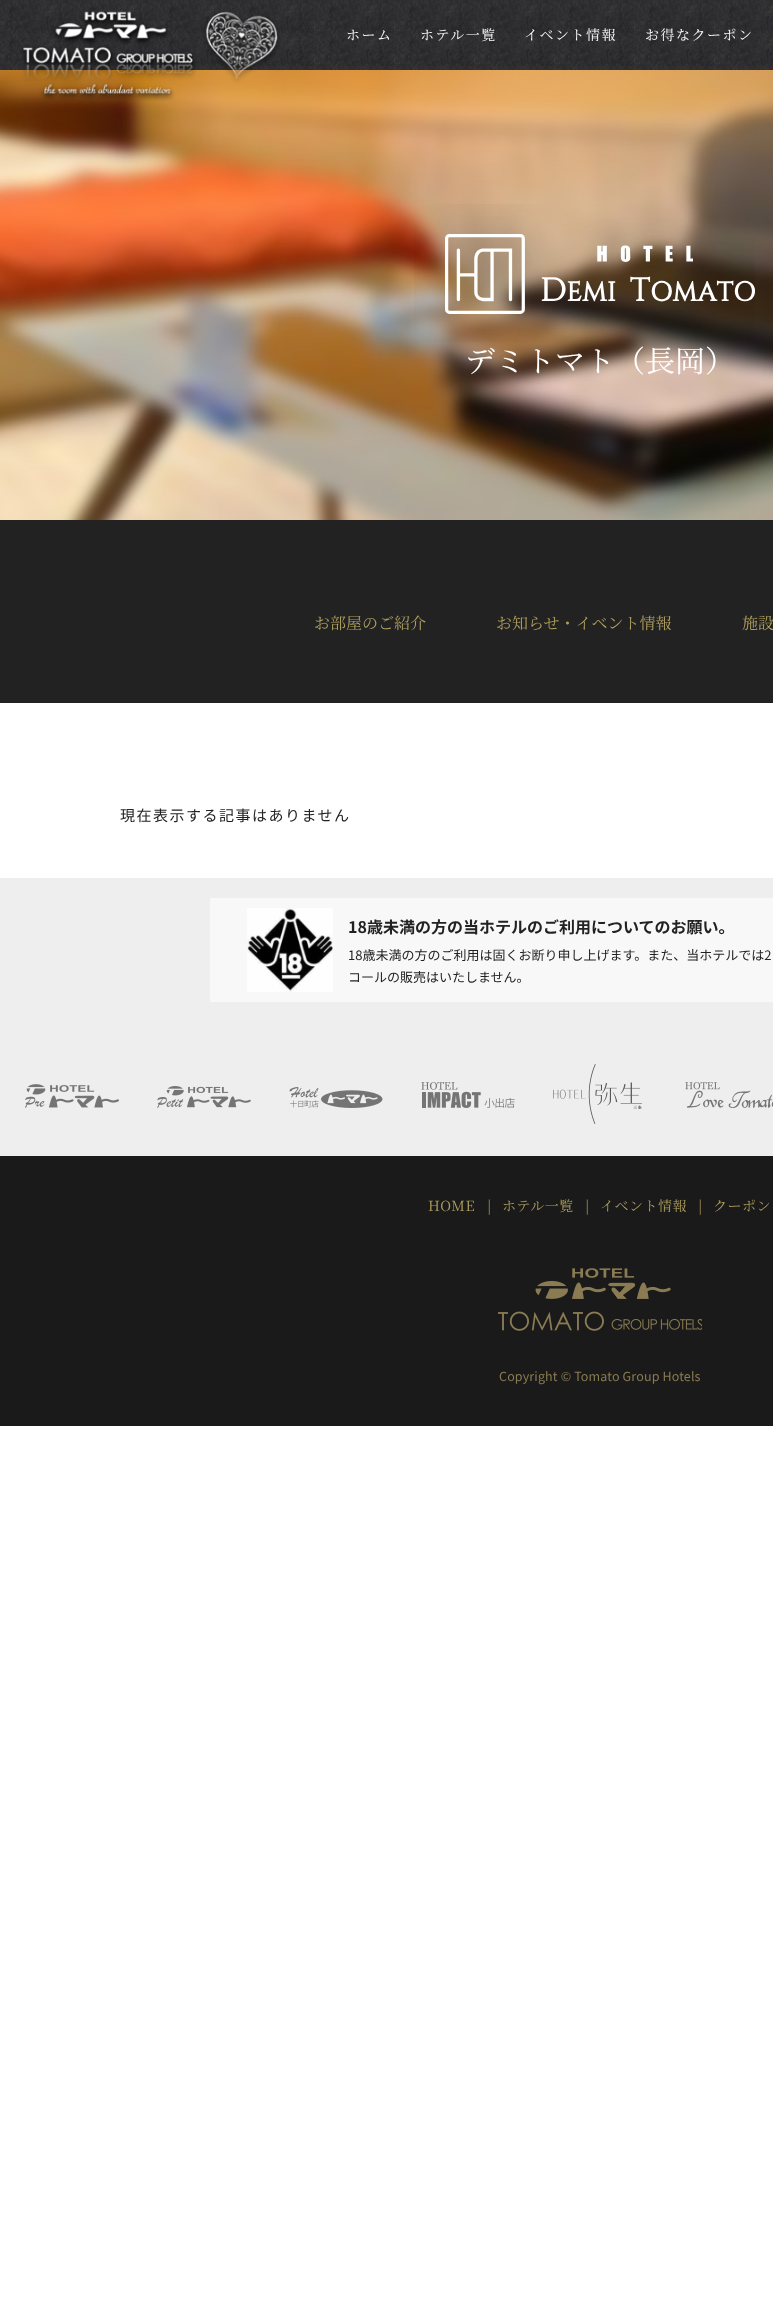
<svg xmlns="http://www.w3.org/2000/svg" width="773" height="2301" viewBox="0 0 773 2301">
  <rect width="100%" height="100%" fill="#ffffff"/>
  <image x="0" y="0" width="773" height="70" href="img1.png"/>
  <image x="0" y="70" width="773" height="450" href="img3.png"/>
  <image x="22" y="11" width="258" height="90" href="img2.png"/>
  <text x="346" y="40" font-family="Noto Serif JP" font-size="14" letter-spacing="1.5" fill="#ffffff">ホーム</text>
  <text x="420" y="40" font-family="Noto Serif JP" font-size="14" letter-spacing="1.5" fill="#ffffff">ホテル一覧</text>
  <text x="524" y="40" font-family="Noto Serif JP" font-size="14" letter-spacing="1.5" fill="#ffffff">イベント情報</text>
  <text x="645" y="40" font-family="Noto Serif JP" font-size="14" letter-spacing="1.5" fill="#ffffff">お得なクーポン</text>
  <image x="414" y="204" width="341" height="138" href="img4.png"/>
  <text x="465" y="372" font-family="Noto Serif JP" font-size="30" fill="#ffffff">デミトマト（長岡）</text>
  <rect x="0" y="520" width="773" height="183" fill="#222222"/>
  <text x="314" y="629" font-family="Noto Serif JP" font-size="16" fill="#af9f5e">お部屋のご紹介</text>
  <text x="496" y="629" font-family="Noto Serif JP" font-size="16" fill="#af9f5e">お知らせ・イベント情報</text>
  <text x="742" y="629" font-family="Noto Serif JP" font-size="16" fill="#af9f5e">施設</text>
  <text x="120" y="821" font-family="Noto Sans JP" font-size="15" letter-spacing="1.5" fill="#222222">現在表示する記事はありません</text>
  <rect x="0" y="878" width="773" height="278" fill="#eeeeee"/>
  <rect x="210" y="898" width="563" height="104" fill="#f8f8f8"/>
  <image x="247" y="908" width="86" height="84" href="img5.png"/>
  <text x="348" y="933" font-family="Noto Sans JP" font-size="16" font-weight="bold" fill="#222222">18歳未満の方の当ホテルのご利用についてのお願い。</text>
  <text x="348" y="960" font-family="Noto Sans JP" font-size="13" fill="#222222">18歳未満の方のご利用は固くお断り申し上げます。また、当ホテルでは2</text>
  <text x="348" y="982" font-family="Noto Sans JP" font-size="13" fill="#222222">コールの販売はいたしません。</text>
  <image x="25" y="1084" width="94" height="24" href="img6.png"/>
  <image x="157" y="1086" width="94" height="22" href="img7.png"/>
  <image x="289" y="1087" width="94" height="21" href="img8.png"/>
  <image x="421" y="1082" width="94" height="26" href="img9.png"/>
  <image x="553" y="1064" width="89" height="60" href="img10.png"/>
  <image x="685" y="1082" width="88" height="26" href="img11.png"/>
  <rect x="0" y="1156" width="773" height="270" fill="#1a1a1a"/>
  <text x="428" y="1211" font-family="Noto Serif JP" font-size="14" letter-spacing="0.5" fill="#af9f5e">HOME</text>
  <text x="487" y="1211" font-family="Noto Serif JP" font-size="14" letter-spacing="0.5" fill="#af9f5e">|</text>
  <text x="502" y="1211" font-family="Noto Serif JP" font-size="14" letter-spacing="0.5" fill="#af9f5e">ホテル一覧</text>
  <text x="585" y="1211" font-family="Noto Serif JP" font-size="14" letter-spacing="0.5" fill="#af9f5e">|</text>
  <text x="600" y="1211" font-family="Noto Serif JP" font-size="14" letter-spacing="0.5" fill="#af9f5e">イベント情報</text>
  <text x="698" y="1211" font-family="Noto Serif JP" font-size="14" letter-spacing="0.5" fill="#af9f5e">|</text>
  <text x="713" y="1211" font-family="Noto Serif JP" font-size="14" letter-spacing="0.5" fill="#af9f5e">クーポン</text>
  <image x="498" y="1268" width="204" height="63" href="img12.png"/>
  <text x="499" y="1381" font-family="Noto Sans JP" font-size="12.5" letter-spacing="0.15" fill="#8a7b52">Copyright © Tomato Group Hotels</text>
</svg>
